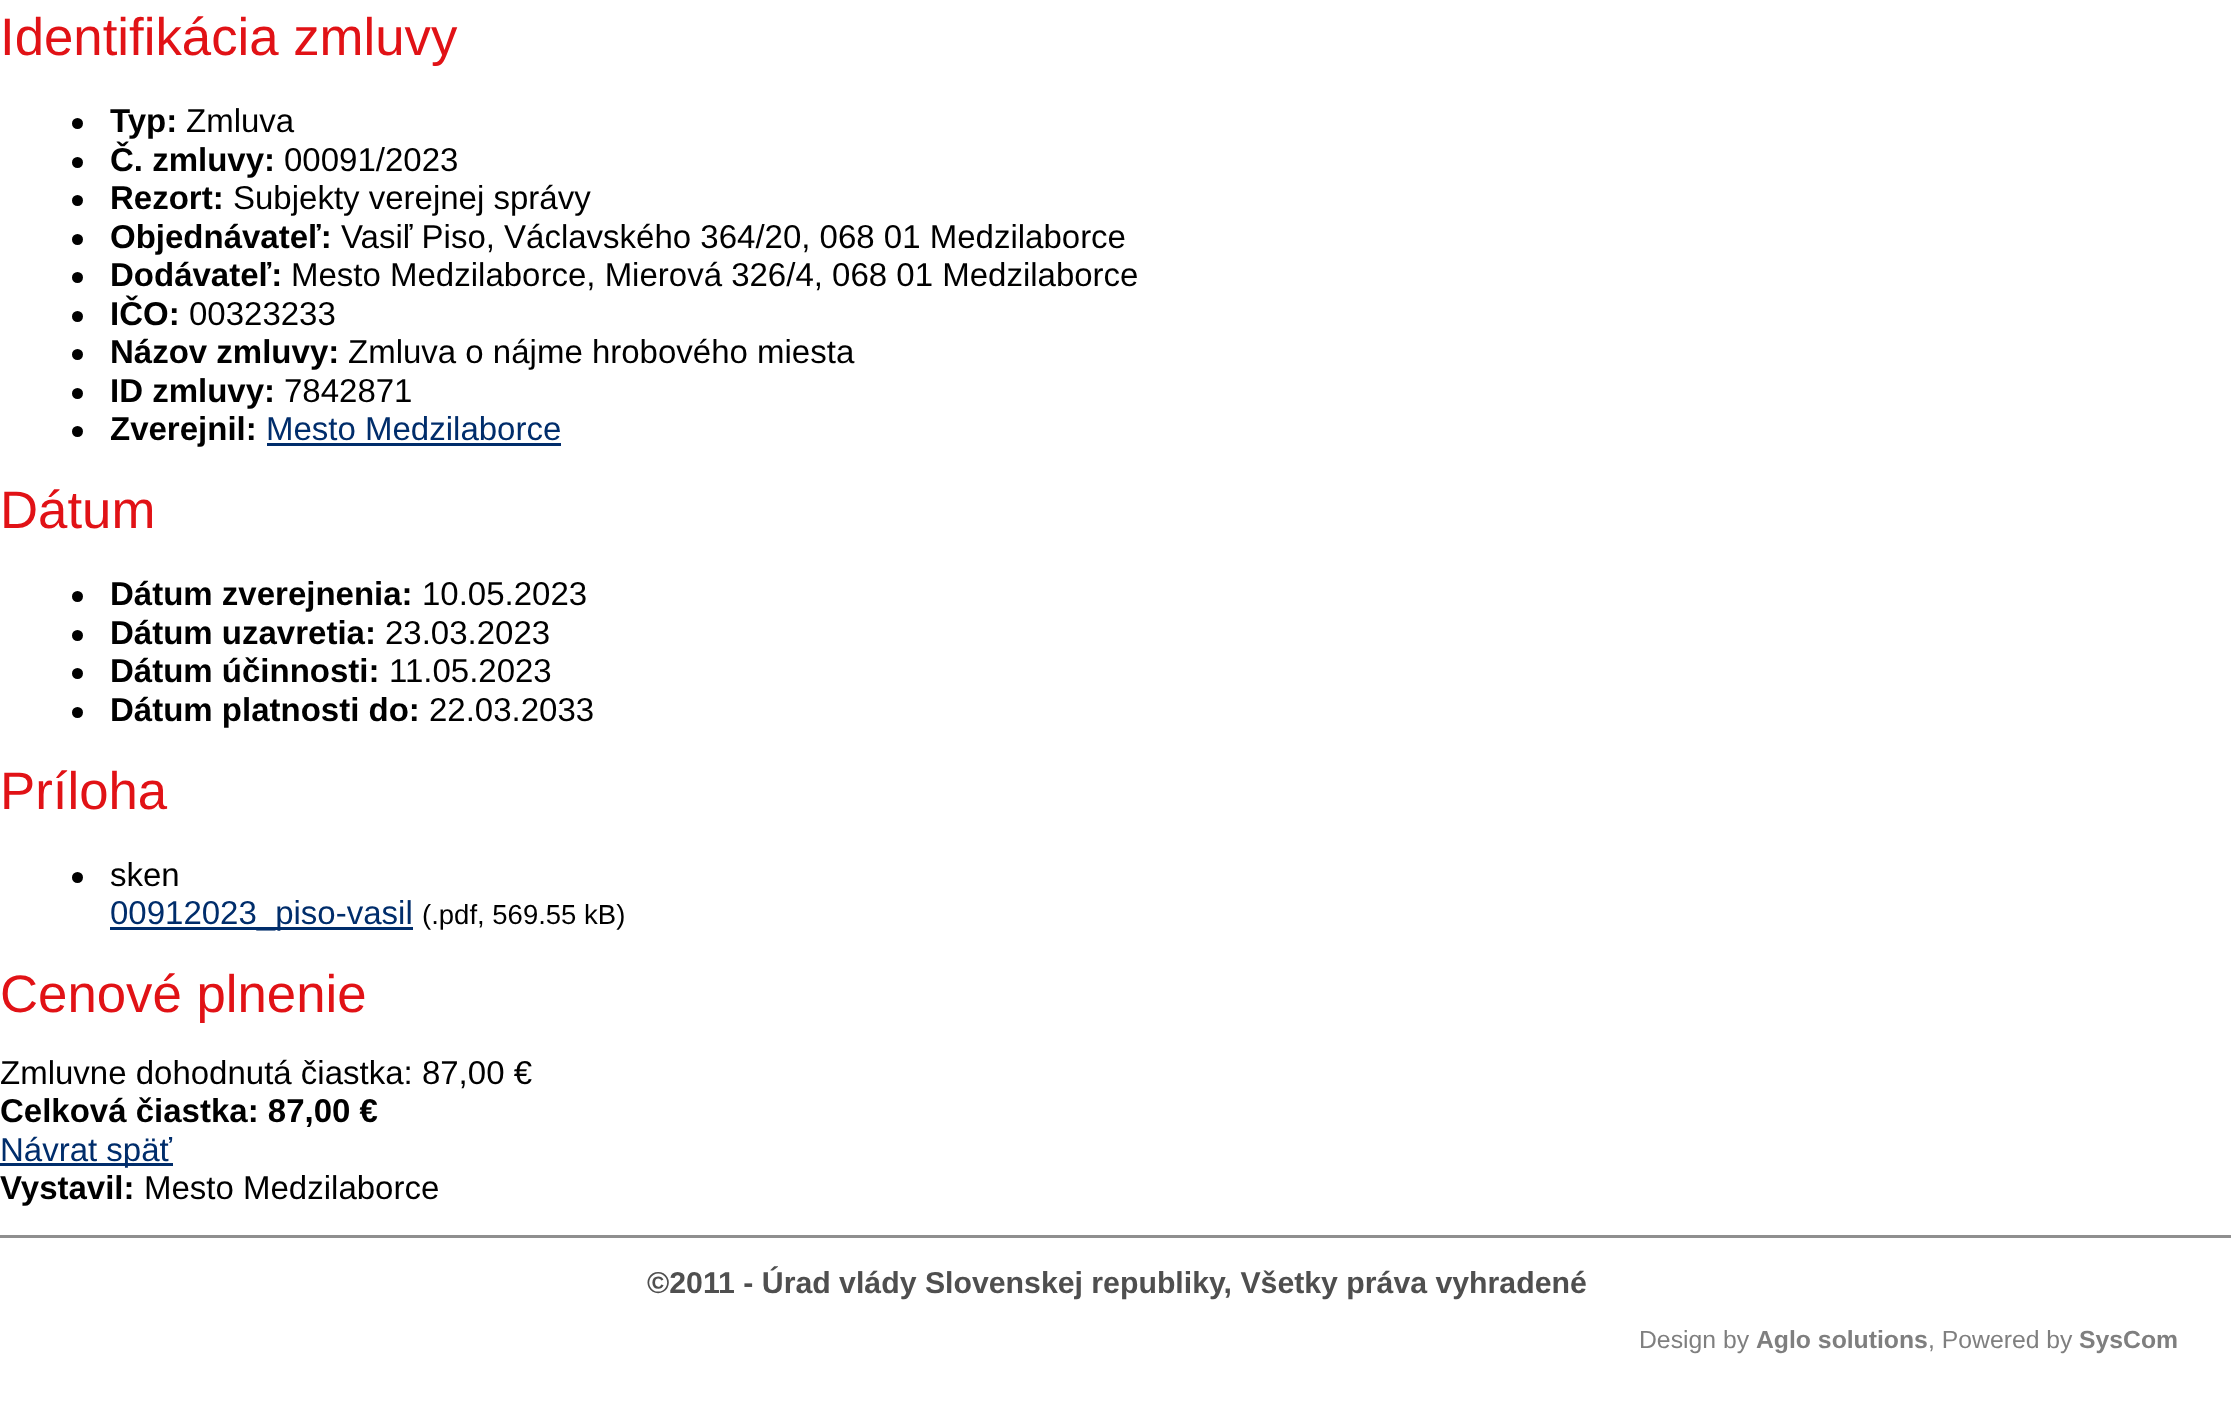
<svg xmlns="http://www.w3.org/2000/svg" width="2231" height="1401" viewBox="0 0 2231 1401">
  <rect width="100%" height="100%" fill="#ffffff"/>
  <text x="0" y="55" font-family="Liberation Sans" font-size="52.75" fill="#e11216">Identifikácia zmluvy</text>
  <circle cx="77.5" cy="123.5" r="5.5" fill="#000000"/>
  <text x="110" y="132" font-family="Liberation Sans" font-size="33" font-weight="bold" fill="#000000">Typ:</text>
  <text x="186" y="132" font-family="Liberation Sans" font-size="33" fill="#000000">Zmluva</text>
  <circle cx="77.5" cy="162.5" r="5.5" fill="#000000"/>
  <text x="110" y="171" font-family="Liberation Sans" font-size="33" font-weight="bold" fill="#000000">Č. zmluvy:</text>
  <text x="284" y="171" font-family="Liberation Sans" font-size="33" fill="#000000">00091/2023</text>
  <circle cx="77.5" cy="200.5" r="5.5" fill="#000000"/>
  <text x="110" y="209" font-family="Liberation Sans" font-size="33" font-weight="bold" fill="#000000">Rezort:</text>
  <text x="233" y="209" font-family="Liberation Sans" font-size="33" fill="#000000">Subjekty verejnej správy</text>
  <circle cx="77.5" cy="239.5" r="5.5" fill="#000000"/>
  <text x="110" y="248" font-family="Liberation Sans" font-size="33" font-weight="bold" fill="#000000">Objednávateľ:</text>
  <text x="341" y="248" font-family="Liberation Sans" font-size="33" fill="#000000">Vasiľ Piso, Václavského 364/20, 068 01 Medzilaborce</text>
  <circle cx="77.5" cy="277.5" r="5.5" fill="#000000"/>
  <text x="110" y="286" font-family="Liberation Sans" font-size="33" font-weight="bold" fill="#000000">Dodávateľ:</text>
  <text x="291" y="286" font-family="Liberation Sans" font-size="33" fill="#000000">Mesto Medzilaborce, Mierová 326/4, 068 01 Medzilaborce</text>
  <circle cx="77.5" cy="316.5" r="5.5" fill="#000000"/>
  <text x="110" y="325" font-family="Liberation Sans" font-size="33" font-weight="bold" fill="#000000">IČO:</text>
  <text x="189" y="325" font-family="Liberation Sans" font-size="33" fill="#000000">00323233</text>
  <circle cx="77.5" cy="354.5" r="5.5" fill="#000000"/>
  <text x="110" y="363" font-family="Liberation Sans" font-size="33" font-weight="bold" fill="#000000">Názov zmluvy:</text>
  <text x="348" y="363" font-family="Liberation Sans" font-size="33" fill="#000000">Zmluva o nájme hrobového miesta</text>
  <circle cx="77.5" cy="393.5" r="5.5" fill="#000000"/>
  <text x="110" y="402" font-family="Liberation Sans" font-size="33" font-weight="bold" fill="#000000">ID zmluvy:</text>
  <text x="284" y="402" font-family="Liberation Sans" font-size="33" fill="#000000">7842871</text>
  <circle cx="77.5" cy="431.5" r="5.5" fill="#000000"/>
  <text x="110" y="440" font-family="Liberation Sans" font-size="33" font-weight="bold" fill="#000000">Zverejnil:</text>
  <text x="266" y="440" font-family="Liberation Sans" font-size="33" fill="#002d6b">Mesto Medzilaborce</text>
  <rect x="267" y="443" width="294" height="3" fill="#002d6b"/>
  <text x="0" y="528" font-family="Liberation Sans" font-size="52.75" fill="#e11216">Dátum</text>
  <circle cx="77.5" cy="596.5" r="5.5" fill="#000000"/>
  <text x="110" y="605" font-family="Liberation Sans" font-size="33" font-weight="bold" fill="#000000">Dátum zverejnenia:</text>
  <text x="422" y="605" font-family="Liberation Sans" font-size="33" fill="#000000">10.05.2023</text>
  <circle cx="77.5" cy="635.5" r="5.5" fill="#000000"/>
  <text x="110" y="644" font-family="Liberation Sans" font-size="33" font-weight="bold" fill="#000000">Dátum uzavretia:</text>
  <text x="385" y="644" font-family="Liberation Sans" font-size="33" fill="#000000">23.03.2023</text>
  <circle cx="77.5" cy="673.5" r="5.5" fill="#000000"/>
  <text x="110" y="682" font-family="Liberation Sans" font-size="33" font-weight="bold" fill="#000000">Dátum účinnosti:</text>
  <text x="389" y="682" font-family="Liberation Sans" font-size="33" fill="#000000">11.05.2023</text>
  <circle cx="77.5" cy="712.5" r="5.5" fill="#000000"/>
  <text x="110" y="721" font-family="Liberation Sans" font-size="33" font-weight="bold" fill="#000000">Dátum platnosti do:</text>
  <text x="429" y="721" font-family="Liberation Sans" font-size="33" fill="#000000">22.03.2033</text>
  <text x="0" y="809" font-family="Liberation Sans" font-size="52.75" fill="#e11216">Príloha</text>
  <circle cx="77.5" cy="877.5" r="5.5" fill="#000000"/>
  <text x="110" y="886" font-family="Liberation Sans" font-size="33" fill="#000000">sken</text>
  <rect x="110" y="927" width="303" height="3" fill="#002d6b"/>
  <text x="110" y="924" font-family="Liberation Sans" font-size="33" fill="#002d6b">00912023_piso-vasil</text>
  <text x="422" y="924" font-family="Liberation Sans" font-size="27.5" fill="#000000">(.pdf, 569.55 kB)</text>
  <text x="0" y="1012" font-family="Liberation Sans" font-size="52.75" fill="#e11216">Cenové plnenie</text>
  <text x="0" y="1084" font-family="Liberation Sans" font-size="33" fill="#000000">Zmluvne dohodnutá čiastka: 87,00 €</text>
  <text x="0" y="1122" font-family="Liberation Sans" font-size="33" font-weight="bold" fill="#000000">Celková čiastka: 87,00 €</text>
  <rect x="0" y="1163" width="173" height="3" fill="#002d6b"/>
  <text x="0" y="1161" font-family="Liberation Sans" font-size="33" fill="#002d6b">Návrat späť</text>
  <text x="0" y="1199" font-family="Liberation Sans" font-size="33" font-weight="bold" fill="#000000">Vystavil:</text>
  <text x="144" y="1199" font-family="Liberation Sans" font-size="33" fill="#000000">Mesto Medzilaborce</text>
  <rect x="0" y="1235" width="2231" height="3" fill="#8f8f8f"/>
  <text x="647" y="1293" font-family="Liberation Sans" font-size="30.25" font-weight="bold" fill="#4f4f4f">©2011 - Úrad vlády Slovenskej republiky, Všetky práva vyhradené</text>
  <text x="1639" y="1348" font-family="Liberation Sans" font-size="24.75" fill="#7f7f7f">Design by</text>
  <text x="1756" y="1348" font-family="Liberation Sans" font-size="24.75" font-weight="bold" fill="#7f7f7f">Aglo solutions</text>
  <text x="1928" y="1348" font-family="Liberation Sans" font-size="24.75" fill="#7f7f7f">, Powered by</text>
  <text x="2079" y="1348" font-family="Liberation Sans" font-size="24.75" font-weight="bold" fill="#7f7f7f">SysCom</text>
</svg>
